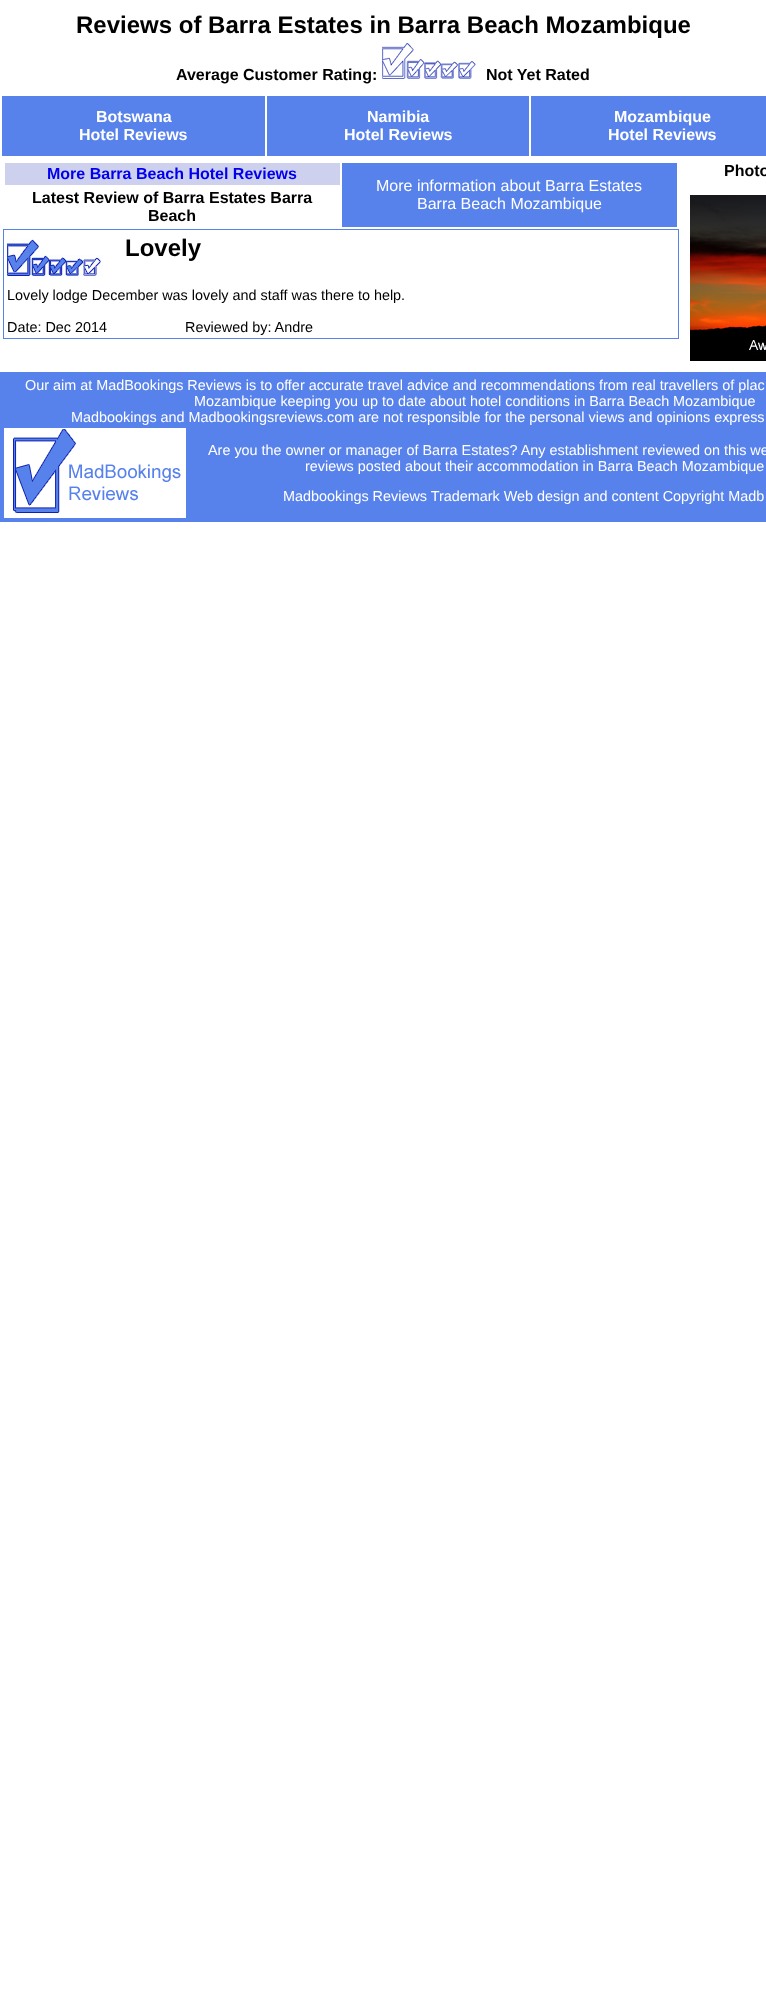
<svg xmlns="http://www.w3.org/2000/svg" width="766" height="2016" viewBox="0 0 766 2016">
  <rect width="100%" height="100%" fill="#ffffff"/>
  <text x="76" y="33" font-family="Liberation Sans" font-size="24" font-weight="bold" fill="#000000">Reviews of Barra Estates in Barra Beach Mozambique</text>
  <text x="176" y="80" font-family="Liberation Sans" font-size="16" font-weight="bold" fill="#000000">Average Customer Rating:</text>
  <image x="382" y="42" width="96" height="37" href="img1.png"/>
  <text x="486" y="80" font-family="Liberation Sans" font-size="16" font-weight="bold" fill="#000000">Not Yet Rated</text>
  <rect x="2" y="96" width="263" height="60" fill="#5882eb"/>
  <text x="96" y="122" font-family="Liberation Sans" font-size="16" font-weight="bold" fill="#ffffff">Botswana</text>
  <text x="79" y="140" font-family="Liberation Sans" font-size="16" font-weight="bold" fill="#ffffff">Hotel Reviews</text>
  <rect x="267" y="96" width="262" height="60" fill="#5882eb"/>
  <text x="367" y="122" font-family="Liberation Sans" font-size="16" font-weight="bold" fill="#ffffff">Namibia</text>
  <text x="344" y="140" font-family="Liberation Sans" font-size="16" font-weight="bold" fill="#ffffff">Hotel Reviews</text>
  <rect x="531" y="96" width="235" height="60" fill="#5882eb"/>
  <text x="614" y="122" font-family="Liberation Sans" font-size="16" font-weight="bold" fill="#ffffff">Mozambique</text>
  <text x="608" y="140" font-family="Liberation Sans" font-size="16" font-weight="bold" fill="#ffffff">Hotel Reviews</text>
  <rect x="5" y="163" width="335" height="22" fill="#ced1ee"/>
  <text x="47" y="179" font-family="Liberation Sans" font-size="16" font-weight="bold" fill="#0000ee">More Barra Beach Hotel Reviews</text>
  <rect x="342" y="163" width="335" height="64" fill="#5882eb"/>
  <text x="376" y="191" font-family="Liberation Sans" font-size="16" fill="#ffffff">More information about Barra Estates</text>
  <text x="417" y="209" font-family="Liberation Sans" font-size="16" fill="#ffffff">Barra Beach Mozambique</text>
  <text x="32" y="203" font-family="Liberation Sans" font-size="16" font-weight="bold" fill="#000000">Latest Review of Barra Estates Barra</text>
  <text x="148" y="221" font-family="Liberation Sans" font-size="16" font-weight="bold" fill="#000000">Beach</text>
  <rect x="3.5" y="229.5" width="675" height="109" fill="none" stroke="#5882eb"/>
  <image x="7" y="239" width="96" height="38" href="img2.png"/>
  <text x="125" y="256" font-family="Liberation Sans" font-size="24" font-weight="bold" fill="#000000">Lovely</text>
  <text x="7" y="300" font-family="Liberation Sans" font-size="14.4" fill="#000000">Lovely lodge December was lovely and staff was there to help.</text>
  <text x="7" y="332" font-family="Liberation Sans" font-size="14.4" fill="#000000">Date: Dec 2014</text>
  <text x="185" y="332" font-family="Liberation Sans" font-size="14.4" fill="#000000">Reviewed by: Andre</text>
  <text x="724" y="176" font-family="Liberation Sans" font-size="16" font-weight="bold" fill="#000000">Photo</text>
  <image x="690" y="195" width="76" height="166" href="img3.png"/>
  <rect x="0" y="372" width="766" height="150" fill="#5882eb"/>
  <text x="25" y="390" font-family="Liberation Sans" font-size="14.4" fill="#ffffff">Our aim at MadBookings Reviews is to offer accurate travel advice and recommendations from real travellers of plac</text>
  <text x="194" y="406" font-family="Liberation Sans" font-size="14.4" fill="#ffffff">Mozambique keeping you up to date about hotel conditions in Barra Beach</text>
  <text x="673" y="406" font-family="Liberation Sans" font-size="14.4" fill="#ffffff">Mozambique</text>
  <text x="71" y="422" font-family="Liberation Sans" font-size="14.4" fill="#ffffff">Madbookings and Madbookingsreviews.com are not responsible for the personal views and opinions express</text>
  <rect x="4" y="428" width="182" height="90" fill="#ffffff"/>
  <image x="13" y="429" width="168" height="84" href="img4.png"/>
  <text x="208" y="455" font-family="Liberation Sans" font-size="14.4" fill="#ffffff">Are you the owner or manager of Barra Estates? Any establishment reviewed on this we</text>
  <text x="305" y="471" font-family="Liberation Sans" font-size="14.4" fill="#ffffff">reviews posted about their accommodation in Barra Beach Mozambique</text>
  <text x="283" y="501" font-family="Liberation Sans" font-size="14.4" fill="#ffffff">Madbookings Reviews Trademark Web design and content Copyright Madb</text>
</svg>
